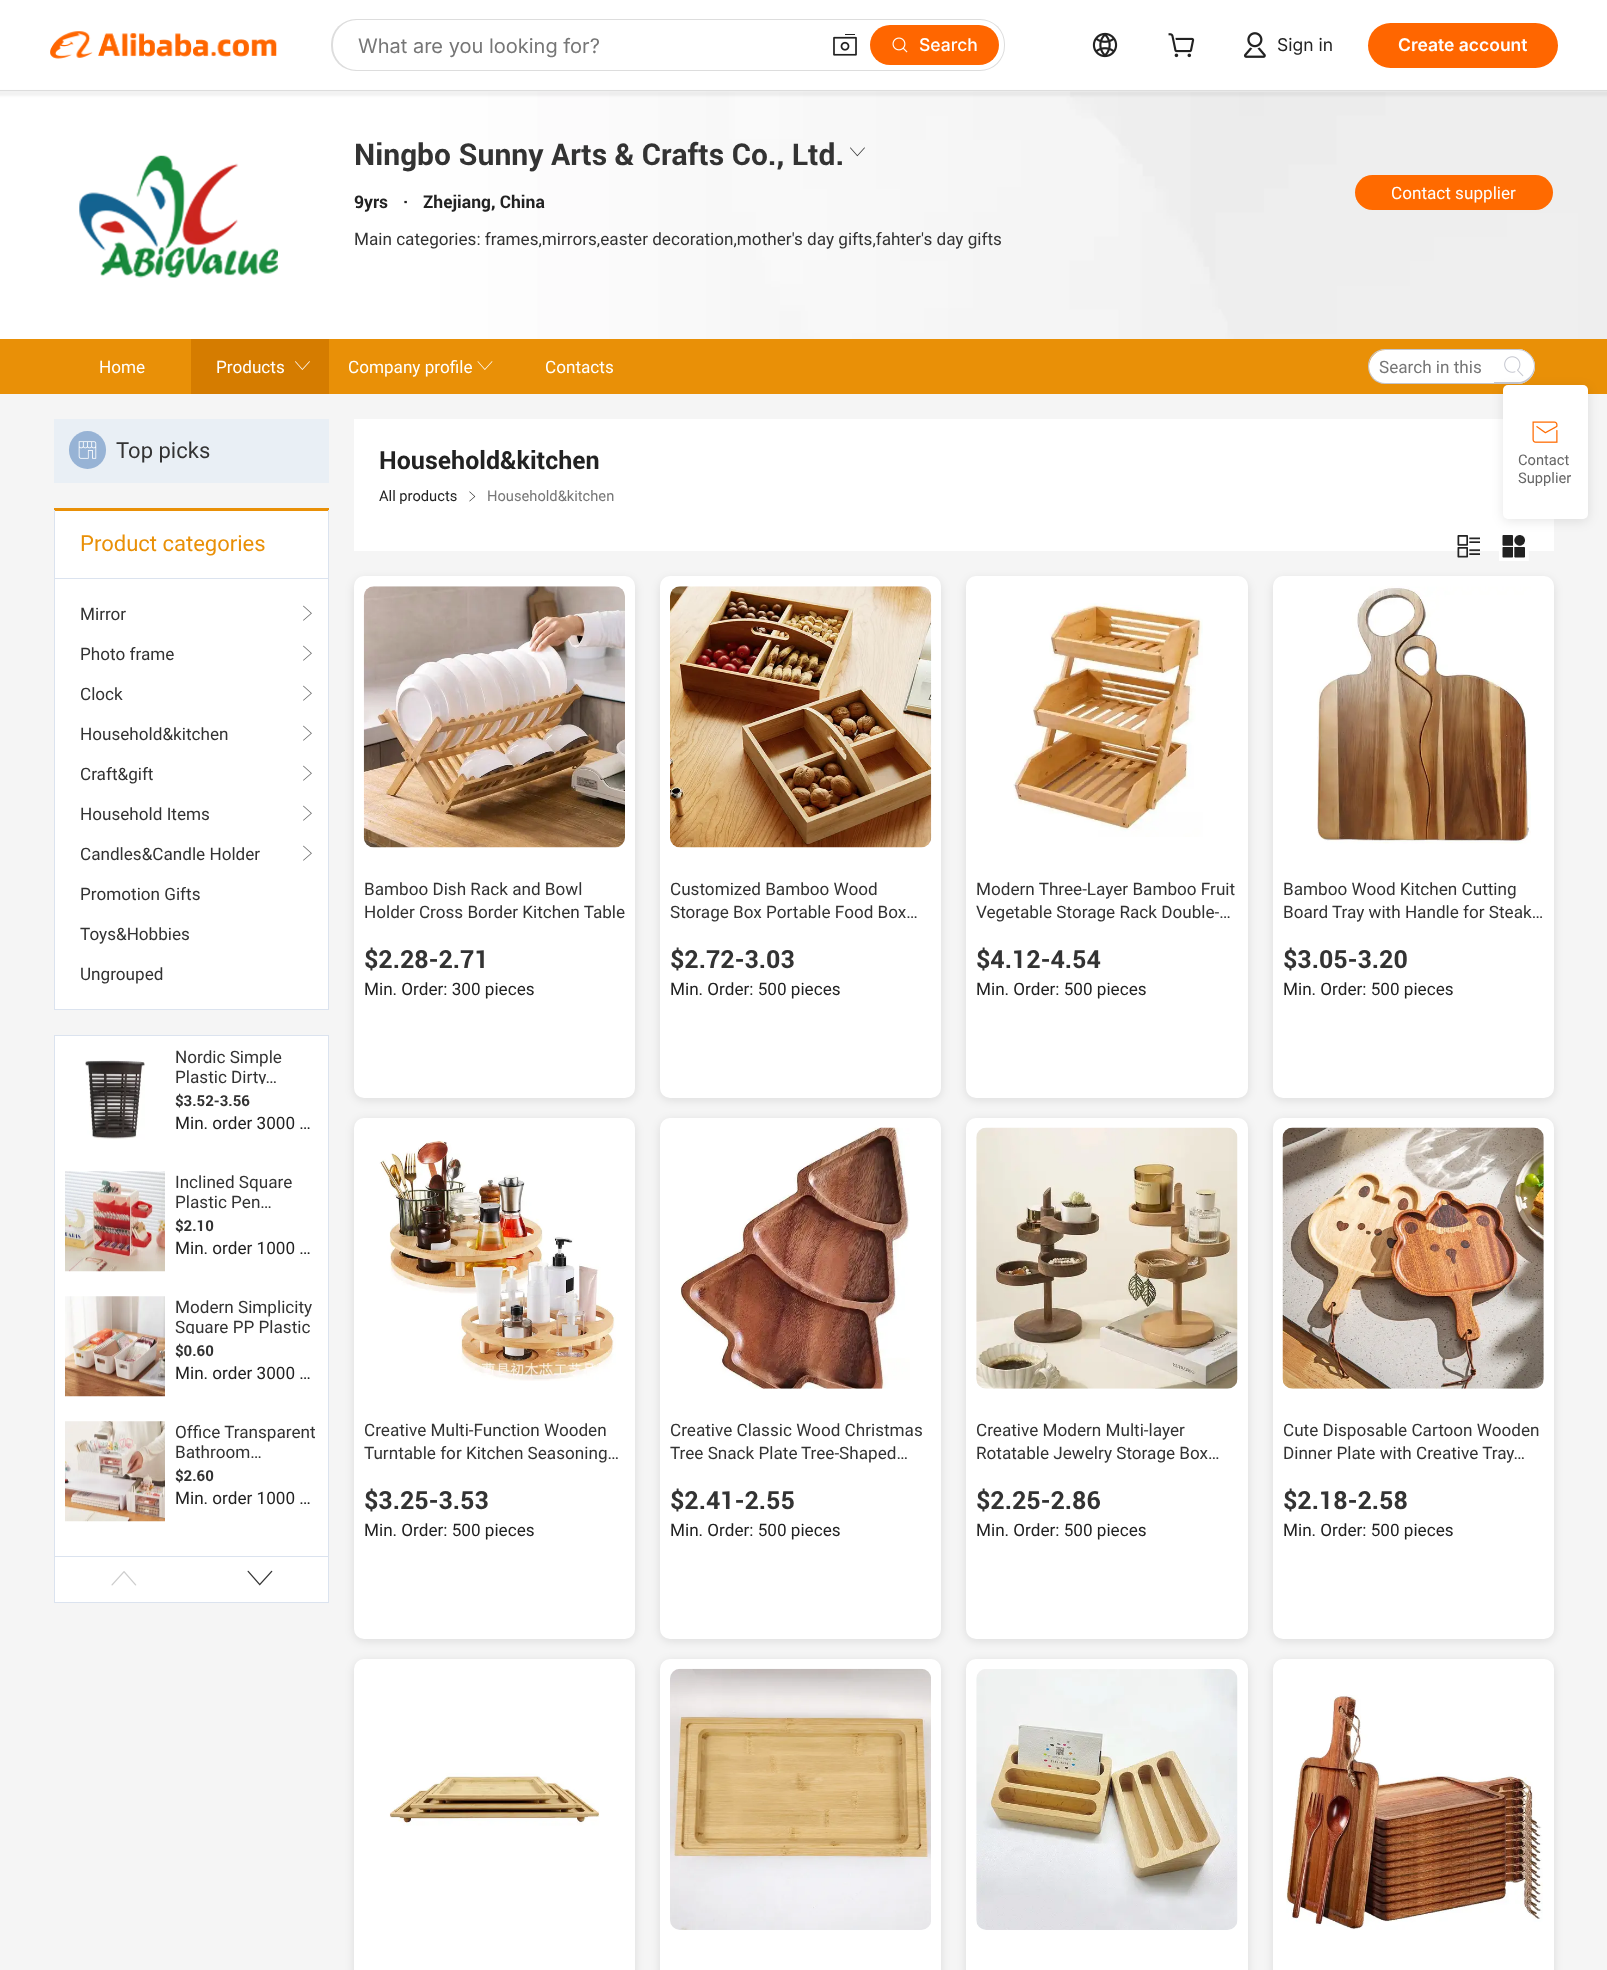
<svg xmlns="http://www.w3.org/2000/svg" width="1607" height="1970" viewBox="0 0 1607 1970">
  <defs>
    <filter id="blur1" x="-50%" y="-200%" width="200%" height="500%"><feGaussianBlur stdDeviation="1"/></filter>
    <clipPath id="clip1"><rect x="175" y="1046" width="143" height="38"/></clipPath>
    <clipPath id="clip2"><rect x="175" y="1296" width="143" height="38"/></clipPath>
    <filter id="blur2" x="-50%" y="-200%" width="200%" height="500%"><feGaussianBlur stdDeviation="5"/></filter>
    <filter id="blur3" x="-50%" y="-200%" width="200%" height="500%"><feGaussianBlur stdDeviation="6"/></filter>
  </defs>
  <rect width="100%" height="100%" fill="#ffffff"/>
  <rect x="0" y="91" width="1607" height="1879" fill="#f5f5f5"/>
  <image x="0" y="91" width="1607" height="248" href="img7.png"/>
  <rect x="-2" y="91" width="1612" height="5" fill="#000000" fill-opacity="0.05" filter="url(#blur1)"/>
  <rect x="0" y="90" width="1607" height="1" fill="#dddddd"/>
  <image x="50" y="31" width="227" height="28" href="img1.png"/>
  <rect x="331" y="19" width="674" height="52" rx="25" fill="#dddddd"/>
  <rect x="333" y="20" width="671" height="50" rx="24" fill="#ffffff"/>
  <text x="358" y="53" font-family="Inter" font-size="20" fill="#767676">What are you looking for?</text>
  <image x="833" y="34" width="24" height="22" href="img2.png"/>
  <rect x="870" y="25" width="129" height="40" rx="20" fill="#ff6600"/>
  <image x="892" y="37" width="16" height="16" href="img3.png"/>
  <text x="919" y="51" font-family="Inter" font-size="17.5" font-weight="500" fill="#ffffff">Search</text>
  <image x="1092" y="32" width="26" height="26" href="img4.png"/>
  <image x="1168" y="33" width="27" height="25" href="img5.png"/>
  <image x="1243" y="32" width="23" height="26" href="img6.png"/>
  <text x="1277" y="51" font-family="Inter" font-size="17.5" fill="#222222">Sign in</text>
  <rect x="1368" y="23" width="190" height="45" rx="22.5" fill="#ff6600"/>
  <text x="1398" y="51" font-family="Inter" font-size="17.5" font-weight="600" fill="#ffffff">Create account</text>
  <image x="79" y="155" width="199" height="123" href="img8.png"/>
  <text x="354" y="165" font-family="Roboto" font-size="30" font-weight="bold" fill="#333333">Ningbo Sunny Arts &amp; Crafts Co., Ltd.</text>
  <image x="850" y="147" width="15" height="10" href="img9.png"/>
  <text x="354" y="208" font-family="Roboto" font-size="17.5" font-weight="bold" fill="#222222">9yrs</text>
  <text x="403" y="208" font-family="Roboto" font-size="17.5" font-weight="bold" fill="#222222">·</text>
  <text x="423" y="208" font-family="Roboto" font-size="17.5" font-weight="bold" fill="#222222">Zhejiang, China</text>
  <text x="354" y="245" font-family="Roboto" font-size="17.5" fill="#333333">Main categories: frames,mirrors,easter decoration,mother's day gifts,fahter's day gifts</text>
  <rect x="1355" y="175" width="198" height="35" rx="17.5" fill="#ff6a00"/>
  <text x="1391" y="199" font-family="Roboto" font-size="17.5" fill="#ffffff">Contact supplier</text>
  <rect x="0" y="339" width="1607" height="55" fill="#e99007"/>
  <text x="99" y="373" font-family="Roboto" font-size="17.5" fill="#ffffff">Home</text>
  <rect x="191" y="339" width="138" height="55" fill="#d57c00"/>
  <text x="216" y="373" font-family="Roboto" font-size="17.5" fill="#ffffff">Products</text>
  <image x="295" y="361" width="15" height="9" href="img10.png"/>
  <text x="348" y="373" font-family="Roboto" font-size="17.5" fill="#ffffff">Company profile</text>
  <image x="477" y="361" width="16" height="9" href="img11.png"/>
  <text x="545" y="373" font-family="Roboto" font-size="17.5" fill="#ffffff">Contacts</text>
  <path d="M1385 349H1494V384H1385C1375 384 1368 376 1368 366C1368 357 1375 349 1385 349ZM1385 350H1494V382H1385C1376 382 1369 375 1369 366C1369 357 1376 350 1385 350Z" fill="#c4c6cf" fill-rule="evenodd"/>
  <path d="M1385.5 350H1493.5C1494 350 1494 350 1494 350.5V382.5C1494 383 1494 383 1493.5 383H1385.5C1376.5 383 1369 375.5 1369 366.5C1369 357.5 1376.5 350 1385.5 350Z" fill="#ffffff"/>
  <text x="1379" y="373" font-family="Roboto" font-size="17.5" fill="#767676">Search in this</text>
  <path d="M1494 349H1517.5C1527 349 1535 357 1535 366.5C1535 376 1527 384 1517.5 384H1494Z" fill="#ffffff"/>
  <path d="M1494 349H1518C1527 349 1535 357 1535 366C1535 376 1527 384 1518 384H1494ZM1494 350H1518C1526 350 1534 357 1534 366C1534 375 1526 382 1518 382H1494Z" fill="#c4c6cf" fill-rule="evenodd"/>
  <image x="1504" y="356" width="20" height="21" href="img12.png"/>
  <rect x="54" y="419" width="275" height="64" fill="#e9eff5"/>
  <rect x="69" y="431" width="37" height="38" rx="18.5" fill="#97b3d5"/>
  <image x="78" y="441" width="19" height="18" href="img13.png"/>
  <text x="116" y="458" font-family="Roboto" font-size="22.5" fill="#333333">Top picks</text>
  <rect x="55" y="511" width="273" height="498" fill="#ffffff"/>
  <rect x="54" y="508" width="275" height="3" fill="#e99007"/>
  <rect x="328" y="510" width="1" height="500" fill="#dbe3ef"/>
  <rect x="54" y="1009" width="275" height="1" fill="#dbe3ef"/>
  <rect x="54" y="510" width="1" height="500" fill="#dbe3ef"/>
  <rect x="55" y="578" width="273" height="1" fill="#dbe3ef"/>
  <text x="80" y="551" font-family="Roboto" font-size="22.5" fill="#e99007">Product categories</text>
  <text x="80" y="620" font-family="Roboto" font-size="17.5" fill="#333333">Mirror</text>
  <image x="303" y="605" width="9" height="16" href="img14.png"/>
  <text x="80" y="660" font-family="Roboto" font-size="17.5" fill="#333333">Photo frame</text>
  <image x="303" y="645" width="9" height="16" href="img14.png"/>
  <text x="80" y="700" font-family="Roboto" font-size="17.5" fill="#333333">Clock</text>
  <image x="303" y="685" width="9" height="16" href="img14.png"/>
  <text x="80" y="740" font-family="Roboto" font-size="17.5" fill="#333333">Household&amp;kitchen</text>
  <image x="303" y="725" width="9" height="16" href="img14.png"/>
  <text x="80" y="780" font-family="Roboto" font-size="17.5" fill="#333333">Craft&amp;gift</text>
  <image x="303" y="765" width="9" height="16" href="img14.png"/>
  <text x="80" y="820" font-family="Roboto" font-size="17.5" fill="#333333">Household Items</text>
  <image x="303" y="805" width="9" height="16" href="img14.png"/>
  <text x="80" y="860" font-family="Roboto" font-size="17.5" fill="#333333">Candles&amp;Candle Holder</text>
  <image x="303" y="845" width="9" height="16" href="img14.png"/>
  <text x="80" y="900" font-family="Roboto" font-size="17.5" fill="#333333">Promotion Gifts</text>
  <text x="80" y="940" font-family="Roboto" font-size="17.5" fill="#333333">Toys&amp;Hobbies</text>
  <text x="80" y="980" font-family="Roboto" font-size="17.5" fill="#333333">Ungrouped</text>
  <rect x="54.5" y="1035.5" width="274" height="567" fill="#ffffff" stroke="#dbe3ef"/>
  <image x="85" y="1060" width="60" height="80" href="img15.png"/>
  <text x="175" y="1063" font-family="Roboto" font-size="17.5" fill="#333333">Nordic Simple</text>
  <g clip-path="url(#clip1)">
    <text x="175" y="1083" font-family="Roboto" font-size="17.5" fill="#333333">Plastic Dirty…</text>
  </g>
  <text x="175" y="1106" font-family="Roboto" font-size="15" font-weight="bold" fill="#333333">$3.52-3.56</text>
  <text x="175" y="1129" font-family="Roboto" font-size="17.5" fill="#222222">Min. order 3000 …</text>
  <image x="65" y="1171" width="100" height="101" href="img16.png"/>
  <text x="175" y="1188" font-family="Roboto" font-size="17.5" fill="#333333">Inclined Square</text>
  <text x="175" y="1208" font-family="Roboto" font-size="17.5" fill="#333333">Plastic Pen…</text>
  <text x="175" y="1231" font-family="Roboto" font-size="15" font-weight="bold" fill="#333333">$2.10</text>
  <text x="175" y="1254" font-family="Roboto" font-size="17.5" fill="#222222">Min. order 1000 …</text>
  <image x="65" y="1296" width="100" height="101" href="img17.png"/>
  <text x="175" y="1313" font-family="Roboto" font-size="17.5" fill="#333333">Modern Simplicity</text>
  <g clip-path="url(#clip2)">
    <text x="175" y="1333" font-family="Roboto" font-size="17.5" fill="#333333">Square PP Plastic</text>
  </g>
  <text x="175" y="1356" font-family="Roboto" font-size="15" font-weight="bold" fill="#333333">$0.60</text>
  <text x="175" y="1379" font-family="Roboto" font-size="17.5" fill="#222222">Min. order 3000 …</text>
  <image x="65" y="1421" width="100" height="101" href="img18.png"/>
  <text x="175" y="1438" font-family="Roboto" font-size="17.5" fill="#333333">Office Transparent</text>
  <text x="175" y="1458" font-family="Roboto" font-size="17.5" fill="#333333">Bathroom…</text>
  <text x="175" y="1481" font-family="Roboto" font-size="15" font-weight="bold" fill="#333333">$2.60</text>
  <text x="175" y="1504" font-family="Roboto" font-size="17.5" fill="#222222">Min. order 1000 …</text>
  <rect x="55" y="1556" width="273" height="1" fill="#dbe3ef"/>
  <image x="111" y="1571" width="26" height="15" href="img19.png"/>
  <image x="247" y="1570" width="26" height="16" href="img20.png"/>
  <rect x="354" y="419" width="1200" height="132" fill="#ffffff"/>
  <text x="379" y="469" font-family="Roboto" font-size="25" font-weight="bold" fill="#222222">Household&amp;kitchen</text>
  <text x="379" y="501" font-family="Roboto" font-size="15" fill="#222222">All products</text>
  <image x="469" y="491" width="7" height="11" href="img21.png"/>
  <text x="487" y="501" font-family="Roboto" font-size="15" fill="#767676">Household&amp;kitchen</text>
  <image x="1457" y="535" width="23" height="23" href="img22.png"/>
  <image x="1499" y="535" width="30" height="26" href="img23.png"/>
  <rect x="354" y="579" width="281" height="521" rx="10" fill="#000000" fill-opacity="0.1" filter="url(#blur2)"/>
  <rect x="354" y="576" width="281" height="522" rx="10" fill="#ffffff"/>
  <image x="363" y="586" width="262" height="262" href="img24.png"/>
  <text x="364" y="895" font-family="Roboto" font-size="17.5" fill="#333333">Bamboo Dish Rack and Bowl</text>
  <text x="364" y="918" font-family="Roboto" font-size="17.5" fill="#333333">Holder Cross Border Kitchen Table</text>
  <text x="364" y="968" font-family="Roboto" font-size="25" font-weight="bold" fill="#333333">$2.28-2.71</text>
  <text x="364" y="995" font-family="Roboto" font-size="17.5" fill="#222222">Min. Order: 300 pieces</text>
  <rect x="660" y="579" width="281" height="521" rx="10" fill="#000000" fill-opacity="0.1" filter="url(#blur2)"/>
  <rect x="660" y="576" width="281" height="522" rx="10" fill="#ffffff"/>
  <image x="670" y="586" width="262" height="262" href="img25.png"/>
  <text x="670" y="895" font-family="Roboto" font-size="17.5" fill="#333333">Customized Bamboo Wood</text>
  <text x="670" y="918" font-family="Roboto" font-size="17.5" fill="#333333">Storage Box Portable Food Box…</text>
  <text x="670" y="968" font-family="Roboto" font-size="25" font-weight="bold" fill="#333333">$2.72-3.03</text>
  <text x="670" y="995" font-family="Roboto" font-size="17.5" fill="#222222">Min. Order: 500 pieces</text>
  <rect x="966" y="579" width="282" height="521" rx="10" fill="#000000" fill-opacity="0.1" filter="url(#blur2)"/>
  <rect x="966" y="576" width="282" height="522" rx="10" fill="#ffffff"/>
  <image x="1013" y="603" width="190" height="234" href="img26.png"/>
  <text x="976" y="895" font-family="Roboto" font-size="17.5" fill="#333333">Modern Three-Layer Bamboo Fruit</text>
  <text x="976" y="918" font-family="Roboto" font-size="17.5" fill="#333333">Vegetable Storage Rack Double-…</text>
  <text x="976" y="968" font-family="Roboto" font-size="25" font-weight="bold" fill="#333333">$4.12-4.54</text>
  <text x="976" y="995" font-family="Roboto" font-size="17.5" fill="#222222">Min. Order: 500 pieces</text>
  <rect x="1273" y="579" width="281" height="521" rx="10" fill="#000000" fill-opacity="0.1" filter="url(#blur2)"/>
  <rect x="1273" y="576" width="281" height="522" rx="10" fill="#ffffff"/>
  <image x="1317" y="586" width="214" height="258" href="img27.png"/>
  <text x="1283" y="895" font-family="Roboto" font-size="17.5" fill="#333333">Bamboo Wood Kitchen Cutting</text>
  <text x="1283" y="918" font-family="Roboto" font-size="17.5" fill="#333333">Board Tray with Handle for Steak…</text>
  <text x="1283" y="968" font-family="Roboto" font-size="25" font-weight="bold" fill="#333333">$3.05-3.20</text>
  <text x="1283" y="995" font-family="Roboto" font-size="17.5" fill="#222222">Min. Order: 500 pieces</text>
  <rect x="354" y="1120" width="281" height="521" rx="10" fill="#000000" fill-opacity="0.1" filter="url(#blur2)"/>
  <rect x="354" y="1118" width="281" height="521" rx="10" fill="#ffffff"/>
  <image x="379" y="1140" width="237" height="241" href="img28.png"/>
  <text x="364" y="1436" font-family="Roboto" font-size="17.5" fill="#333333">Creative Multi-Function Wooden</text>
  <text x="364" y="1459" font-family="Roboto" font-size="17.5" fill="#333333">Turntable for Kitchen Seasoning…</text>
  <text x="364" y="1509" font-family="Roboto" font-size="25" font-weight="bold" fill="#333333">$3.25-3.53</text>
  <text x="364" y="1536" font-family="Roboto" font-size="17.5" fill="#222222">Min. Order: 500 pieces</text>
  <rect x="660" y="1120" width="281" height="521" rx="10" fill="#000000" fill-opacity="0.1" filter="url(#blur2)"/>
  <rect x="660" y="1118" width="281" height="521" rx="10" fill="#ffffff"/>
  <image x="680" y="1127" width="230" height="262" href="img29.png"/>
  <text x="670" y="1436" font-family="Roboto" font-size="17.5" fill="#333333">Creative Classic Wood Christmas</text>
  <text x="670" y="1459" font-family="Roboto" font-size="17.5" fill="#333333">Tree Snack Plate</text>
  <text x="801" y="1459" font-family="Roboto" font-size="17.5" fill="#333333">Tree-Shaped…</text>
  <text x="670" y="1509" font-family="Roboto" font-size="25" font-weight="bold" fill="#333333">$2.41-2.55</text>
  <text x="670" y="1536" font-family="Roboto" font-size="17.5" fill="#222222">Min. Order: 500 pieces</text>
  <rect x="966" y="1120" width="282" height="521" rx="10" fill="#000000" fill-opacity="0.1" filter="url(#blur2)"/>
  <rect x="966" y="1118" width="282" height="521" rx="10" fill="#ffffff"/>
  <image x="976" y="1127" width="262" height="262" href="img30.png"/>
  <text x="976" y="1436" font-family="Roboto" font-size="17.5" fill="#333333">Creative Modern Multi-layer</text>
  <text x="976" y="1459" font-family="Roboto" font-size="17.5" fill="#333333">Rotatable Jewelry Storage Box…</text>
  <text x="976" y="1509" font-family="Roboto" font-size="25" font-weight="bold" fill="#333333">$2.25-2.86</text>
  <text x="976" y="1536" font-family="Roboto" font-size="17.5" fill="#222222">Min. Order: 500 pieces</text>
  <rect x="1273" y="1120" width="281" height="521" rx="10" fill="#000000" fill-opacity="0.1" filter="url(#blur2)"/>
  <rect x="1273" y="1118" width="281" height="521" rx="10" fill="#ffffff"/>
  <image x="1282" y="1127" width="262" height="262" href="img31.png"/>
  <text x="1283" y="1436" font-family="Roboto" font-size="17.5" fill="#333333">Cute Disposable Cartoon Wooden</text>
  <text x="1283" y="1459" font-family="Roboto" font-size="17.5" fill="#333333">Dinner Plate with Creative Tray…</text>
  <text x="1283" y="1509" font-family="Roboto" font-size="25" font-weight="bold" fill="#333333">$2.18-2.58</text>
  <text x="1283" y="1536" font-family="Roboto" font-size="17.5" fill="#222222">Min. Order: 500 pieces</text>
  <rect x="354" y="1661" width="281" height="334" rx="10" fill="#000000" fill-opacity="0.1" filter="url(#blur2)"/>
  <rect x="354" y="1659" width="281" height="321" rx="10" fill="#ffffff"/>
  <image x="389" y="1773" width="211" height="53" href="img32.png"/>
  <rect x="660" y="1661" width="281" height="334" rx="10" fill="#000000" fill-opacity="0.1" filter="url(#blur2)"/>
  <rect x="660" y="1659" width="281" height="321" rx="10" fill="#ffffff"/>
  <image x="670" y="1668" width="261" height="262" href="img33.png"/>
  <rect x="966" y="1661" width="282" height="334" rx="10" fill="#000000" fill-opacity="0.1" filter="url(#blur2)"/>
  <rect x="966" y="1659" width="282" height="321" rx="10" fill="#ffffff"/>
  <image x="976" y="1669" width="262" height="261" href="img34.png"/>
  <rect x="1273" y="1661" width="281" height="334" rx="10" fill="#000000" fill-opacity="0.1" filter="url(#blur2)"/>
  <rect x="1273" y="1659" width="281" height="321" rx="10" fill="#ffffff"/>
  <image x="1286" y="1695" width="257" height="235" href="img35.png"/>
  <rect x="1503" y="388" width="85" height="133" rx="5" fill="#000000" fill-opacity="0.1" filter="url(#blur3)"/>
  <rect x="1503" y="385" width="85" height="134" rx="5" fill="#ffffff"/>
  <image x="1532" y="421" width="26" height="22" href="img36.png"/>
  <text x="1518" y="465" font-family="Roboto" font-size="15" fill="#666666">Contact</text>
  <text x="1518" y="483" font-family="Roboto" font-size="15" fill="#666666">Supplier</text>
</svg>
